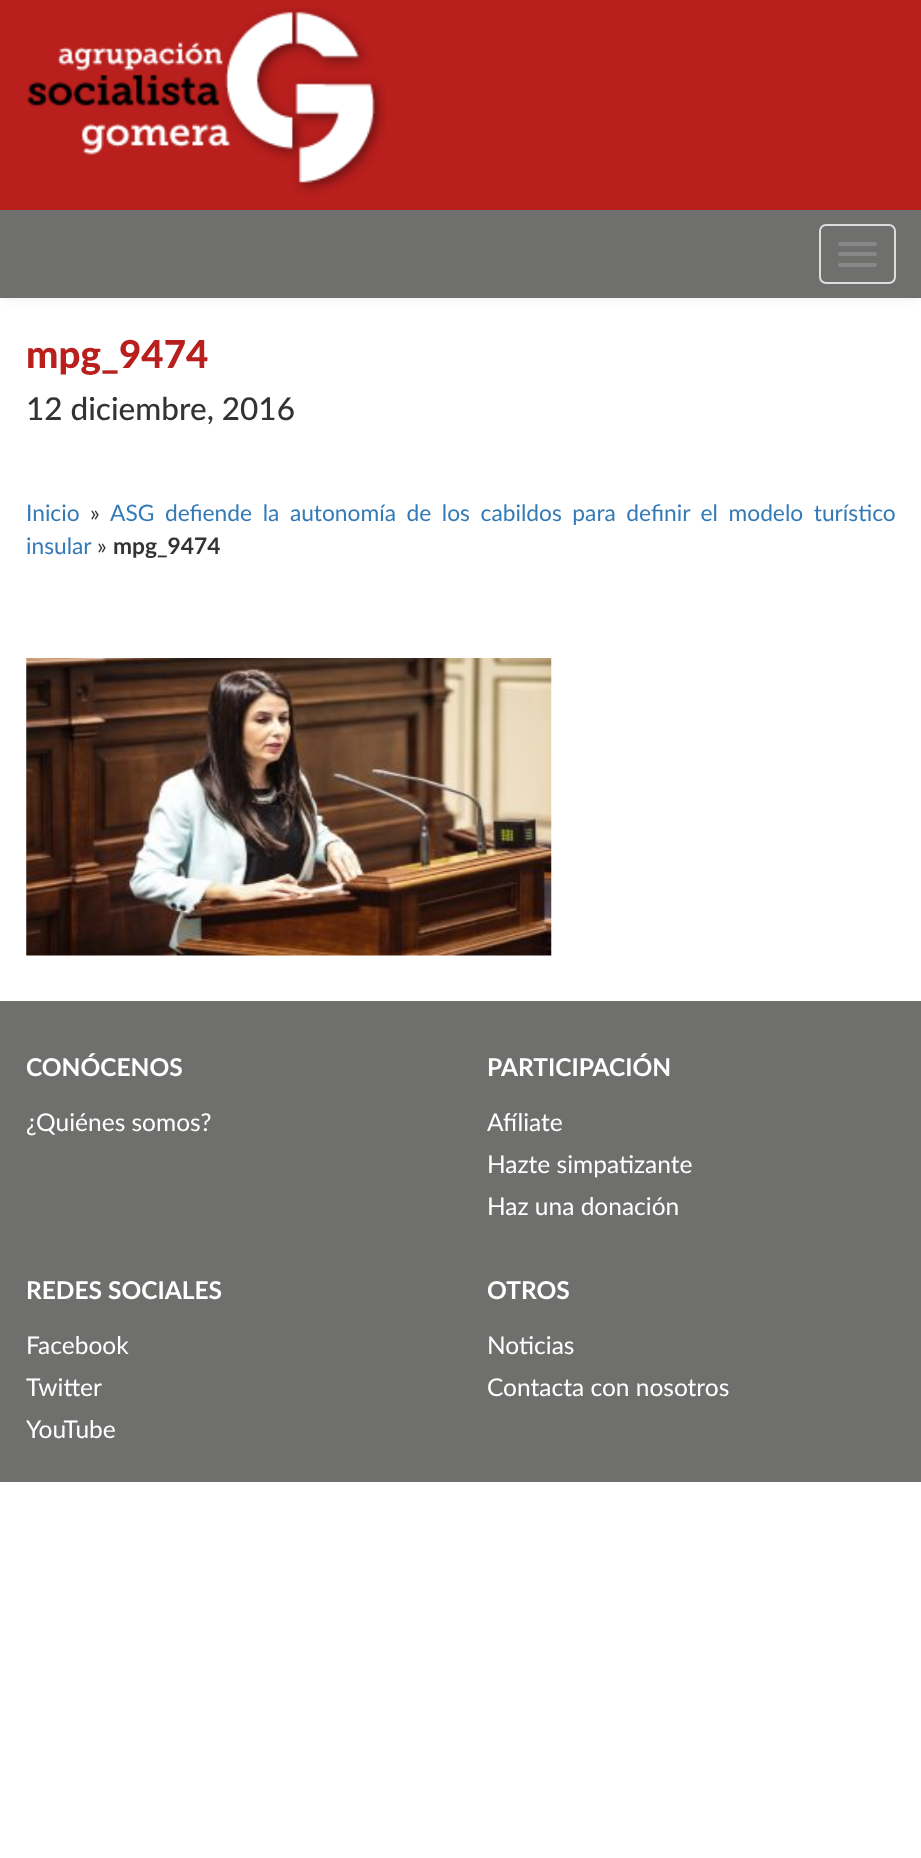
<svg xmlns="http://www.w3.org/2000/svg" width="921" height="1858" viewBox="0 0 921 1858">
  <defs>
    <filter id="blur1" x="-50%" y="-200%" width="200%" height="500%"><feGaussianBlur stdDeviation="4.5"/></filter>
  </defs>
  <rect width="100%" height="100%" fill="#ffffff"/>
  <rect x="0" y="0" width="921" height="210" fill="#b81f1d"/>
  <image x="27" y="8" width="359" height="187" href="img1.png"/>
  <rect x="0" y="212" width="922" height="87" rx="7" fill="#000000" fill-opacity="0.07" filter="url(#blur1)"/>
  <rect x="0" y="210" width="921" height="88" fill="#6f6f6e"/>
  <rect x="820" y="225" width="75" height="58" rx="6" fill="none" stroke="#dddddd" stroke-width="2"/>
  <rect x="838" y="242" width="39" height="4" rx="2" fill="#888888"/>
  <rect x="838" y="252" width="39" height="4" rx="2" fill="#888888"/>
  <rect x="838" y="263" width="39" height="4" rx="2" fill="#888888"/>
  <text x="26" y="368" font-family="Lato" font-size="38.5" font-weight="900" fill="#b81f1d">mpg_9474</text>
  <text x="26" y="420" font-family="Lato" font-size="31.5" font-weight="500" fill="#333333">12 diciembre, 2016</text>
  <text x="26" y="521" font-family="Lato" font-size="22.75" fill="#337ab7">Inicio</text>
  <text x="90" y="521" font-family="Lato" font-size="22.75" fill="#333333">»</text>
  <text x="110" y="521" word-spacing="4.75" font-family="Lato" font-size="22.75" fill="#337ab7">ASG defiende la autonomía de los cabildos para definir el modelo turístico</text>
  <text x="26" y="554" font-family="Lato" font-size="22.75" fill="#337ab7">insular</text>
  <text x="97" y="554" font-family="Lato" font-size="22.75" fill="#333333">»</text>
  <text x="113" y="554" font-family="Lato" font-size="22.75" font-weight="bold" fill="#333333">mpg_9474</text>
  <image x="26" y="658" width="526" height="298" href="img2.png"/>
  <rect x="0" y="1001" width="921" height="481" fill="#6f6f6e"/>
  <text x="26" y="1076" font-family="Lato" font-size="24.5" font-weight="bold" fill="#ffffff">CONÓCENOS</text>
  <text x="26" y="1131" font-family="Lato" font-size="24.5" fill="#ffffff">¿Quiénes somos?</text>
  <text x="487" y="1076" font-family="Lato" font-size="24.5" font-weight="bold" fill="#ffffff">PARTICIPACIÓN</text>
  <text x="487" y="1131" font-family="Lato" font-size="24.5" fill="#ffffff">Afíliate</text>
  <text x="487" y="1173" font-family="Lato" font-size="24.5" fill="#ffffff">Hazte simpatizante</text>
  <text x="487" y="1215" font-family="Lato" font-size="24.5" fill="#ffffff">Haz una donación</text>
  <text x="26" y="1299" font-family="Lato" font-size="24.5" font-weight="bold" fill="#ffffff">REDES SOCIALES</text>
  <text x="26" y="1354" font-family="Lato" font-size="24.5" fill="#ffffff">Facebook</text>
  <text x="26" y="1396" font-family="Lato" font-size="24.5" fill="#ffffff">Twitter</text>
  <text x="26" y="1438" font-family="Lato" font-size="24.5" fill="#ffffff">YouTube</text>
  <text x="487" y="1299" font-family="Lato" font-size="24.5" font-weight="bold" fill="#ffffff">OTROS</text>
  <text x="487" y="1354" font-family="Lato" font-size="24.5" fill="#ffffff">Noticias</text>
  <text x="487" y="1396" font-family="Lato" font-size="24.5" fill="#ffffff">Contacta con nosotros</text>
</svg>
